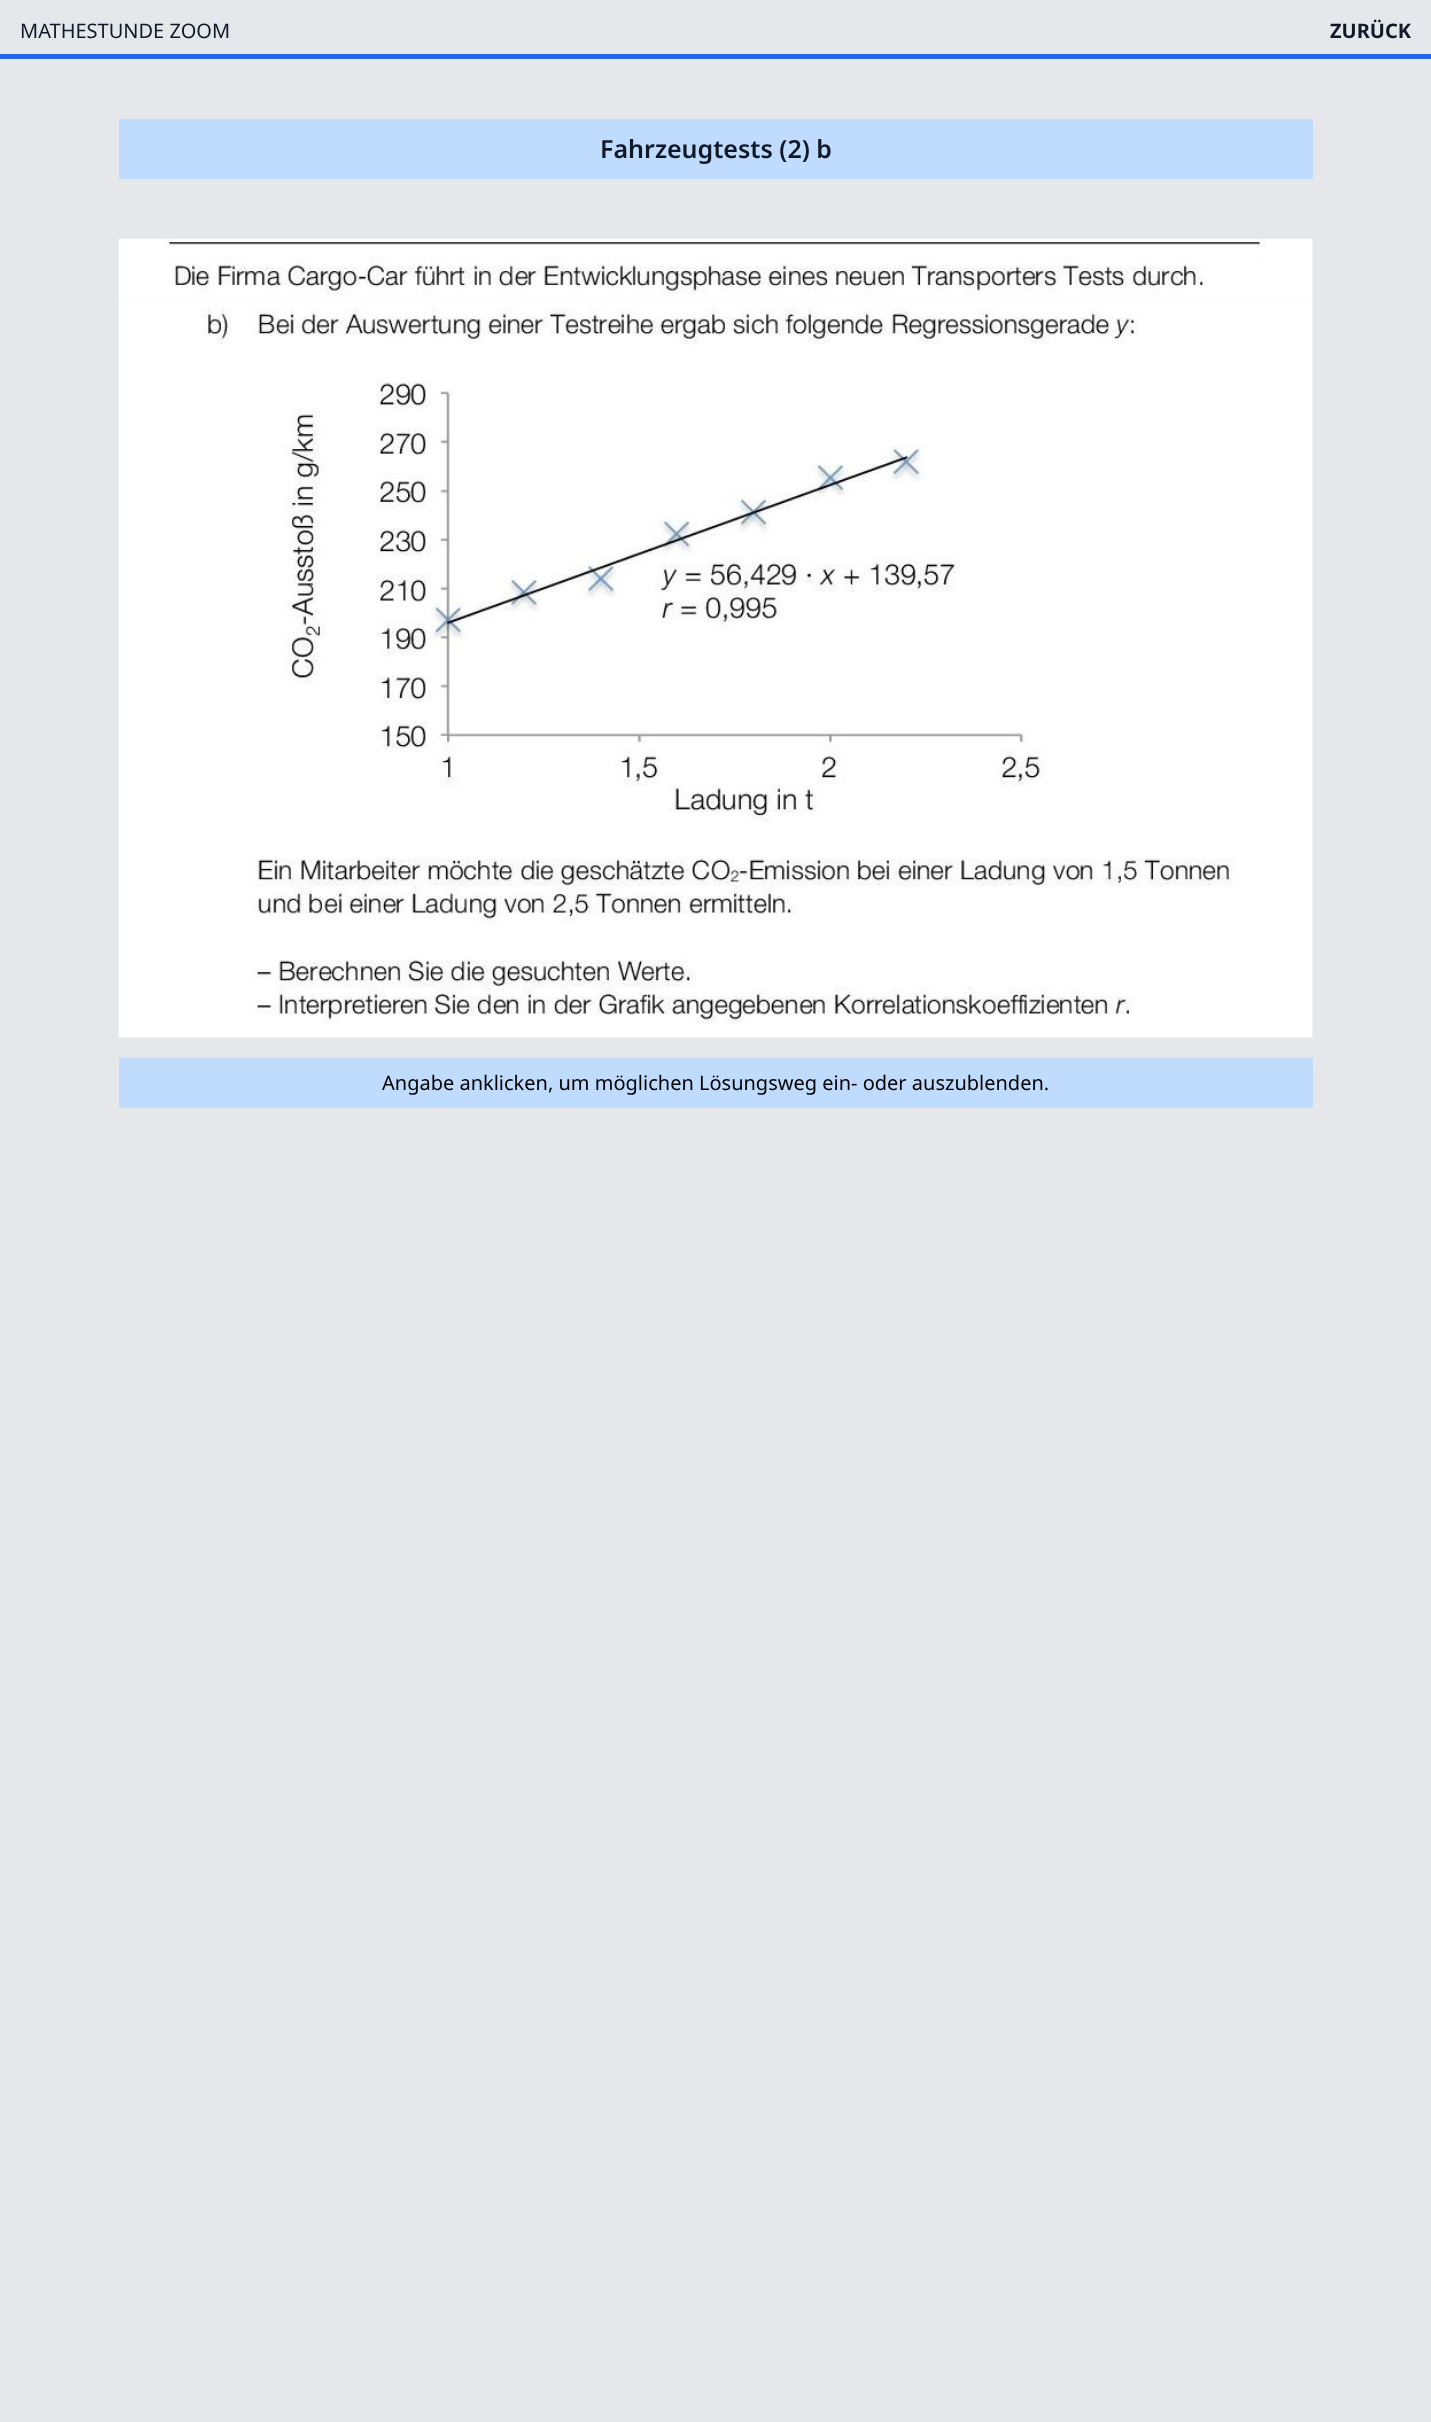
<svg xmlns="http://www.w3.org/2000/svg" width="1431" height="2422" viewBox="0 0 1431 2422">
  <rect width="100%" height="100%" fill="#e5e7eb"/>
  <rect x="0" y="54" width="1431" height="5" fill="#2563eb"/>
  <text x="20" y="38" font-family="Noto Sans" font-size="20" fill="#111827">MATHESTUNDE ZOOM</text>
  <text x="1330" y="38" font-family="Noto Sans" font-size="20" font-weight="bold" fill="#111827">ZURÜCK</text>
  <rect x="119" y="119" width="1194" height="60" fill="#bfdbfe"/>
  <text x="600" y="158" font-family="Noto Sans" font-size="25" font-weight="600" fill="#111827">Fahrzeugtests (2) b</text>
  <image x="118" y="238" width="1195" height="61" href="img1.png"/>
  <image x="118" y="299" width="1195" height="739" href="img2.png"/>
  <rect x="119" y="1058" width="1194" height="50" fill="#bfdbfe"/>
  <text x="382" y="1090" font-family="Noto Sans" font-size="20" fill="#000000">Angabe anklicken, um möglichen Lösungsweg ein- oder auszublenden.</text>
</svg>
